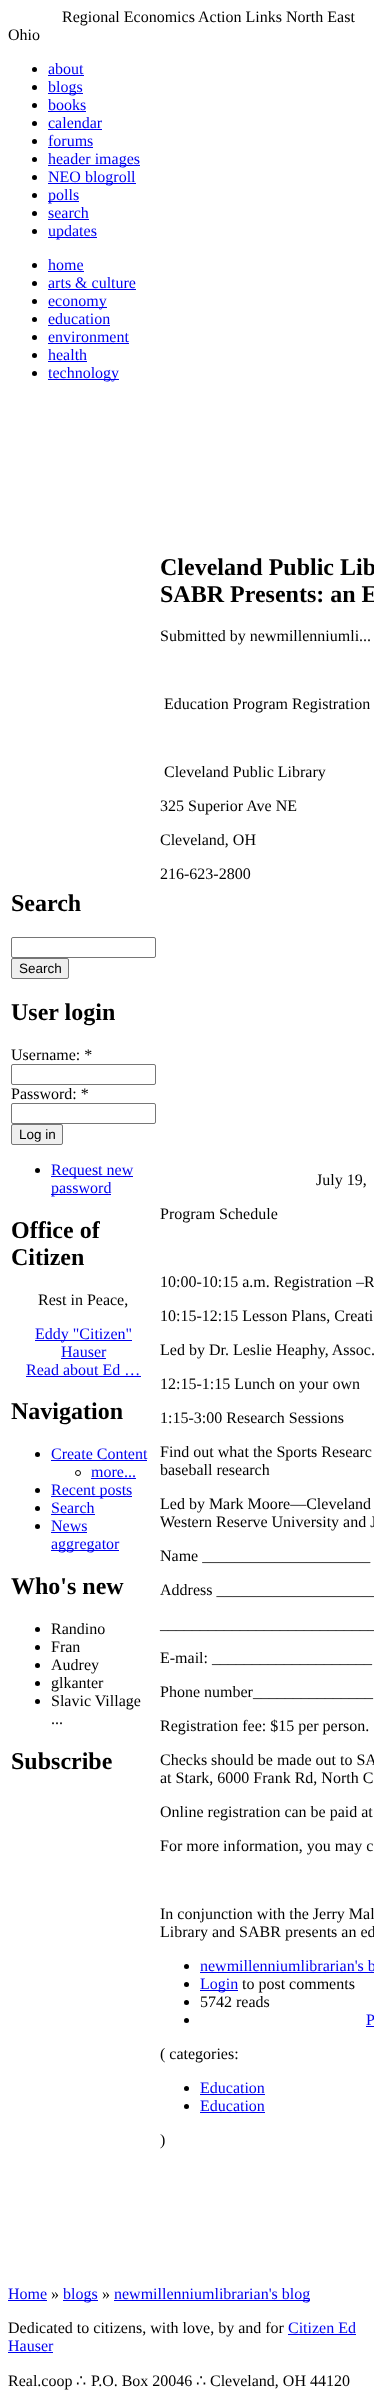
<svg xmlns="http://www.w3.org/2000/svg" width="374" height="2401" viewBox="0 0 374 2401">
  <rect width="100%" height="100%" fill="#ffffff"/>
  <text x="62" y="22" font-family="Liberation Serif" font-size="16" fill="#000000">Regional Economics Action Links North East</text>
  <text x="8" y="40" font-family="Liberation Serif" font-size="16" fill="#000000">Ohio</text>
  <circle cx="34.5" cy="69.5" r="2.5" fill="#000000"/>
  <text x="48" y="74" font-family="Liberation Serif" font-size="16" fill="#0000ee">about</text>
  <rect x="48" y="75" width="36" height="1" fill="#0000ee"/>
  <circle cx="34.5" cy="87.5" r="2.5" fill="#000000"/>
  <rect x="48" y="93" width="35" height="1" fill="#0000ee"/>
  <text x="48" y="92" font-family="Liberation Serif" font-size="16" fill="#0000ee">blogs</text>
  <circle cx="34.5" cy="105.5" r="2.5" fill="#000000"/>
  <text x="48" y="110" font-family="Liberation Serif" font-size="16" fill="#0000ee">books</text>
  <rect x="48" y="111" width="38" height="1" fill="#0000ee"/>
  <circle cx="34.5" cy="123.5" r="2.5" fill="#000000"/>
  <text x="48" y="128" font-family="Liberation Serif" font-size="16" fill="#0000ee">calendar</text>
  <rect x="48" y="129" width="54" height="1" fill="#0000ee"/>
  <circle cx="34.5" cy="141.5" r="2.5" fill="#000000"/>
  <text x="48" y="146" font-family="Liberation Serif" font-size="16" fill="#0000ee">forums</text>
  <rect x="48" y="147" width="45" height="1" fill="#0000ee"/>
  <circle cx="34.5" cy="159.5" r="2.5" fill="#000000"/>
  <rect x="48" y="165" width="92" height="1" fill="#0000ee"/>
  <text x="48" y="164" font-family="Liberation Serif" font-size="16" fill="#0000ee">header images</text>
  <circle cx="34.5" cy="177.5" r="2.5" fill="#000000"/>
  <rect x="48" y="183" width="88" height="1" fill="#0000ee"/>
  <text x="48" y="182" font-family="Liberation Serif" font-size="16" fill="#0000ee">NEO blogroll</text>
  <circle cx="34.5" cy="195.5" r="2.5" fill="#000000"/>
  <rect x="48" y="201" width="31" height="1" fill="#0000ee"/>
  <text x="48" y="200" font-family="Liberation Serif" font-size="16" fill="#0000ee">polls</text>
  <circle cx="34.5" cy="213.5" r="2.5" fill="#000000"/>
  <text x="48" y="218" font-family="Liberation Serif" font-size="16" fill="#0000ee">search</text>
  <rect x="48" y="219" width="41" height="1" fill="#0000ee"/>
  <circle cx="34.5" cy="231.5" r="2.5" fill="#000000"/>
  <rect x="48" y="237" width="49" height="1" fill="#0000ee"/>
  <text x="48" y="236" font-family="Liberation Serif" font-size="16" fill="#0000ee">updates</text>
  <circle cx="34.5" cy="265.5" r="2.5" fill="#000000"/>
  <text x="48" y="270" font-family="Liberation Serif" font-size="16" fill="#0000ee">home</text>
  <rect x="48" y="271" width="36" height="1" fill="#0000ee"/>
  <circle cx="34.5" cy="283.5" r="2.5" fill="#000000"/>
  <text x="48" y="288" font-family="Liberation Serif" font-size="16" fill="#0000ee">arts &amp; culture</text>
  <rect x="48" y="289" width="88" height="1" fill="#0000ee"/>
  <circle cx="34.5" cy="301.5" r="2.5" fill="#000000"/>
  <rect x="48" y="307" width="59" height="1" fill="#0000ee"/>
  <text x="48" y="306" font-family="Liberation Serif" font-size="16" fill="#0000ee">economy</text>
  <circle cx="34.5" cy="319.5" r="2.5" fill="#000000"/>
  <text x="48" y="324" font-family="Liberation Serif" font-size="16" fill="#0000ee">education</text>
  <rect x="48" y="325" width="62" height="1" fill="#0000ee"/>
  <circle cx="34.5" cy="337.5" r="2.5" fill="#000000"/>
  <text x="48" y="342" font-family="Liberation Serif" font-size="16" fill="#0000ee">environment</text>
  <rect x="48" y="343" width="81" height="1" fill="#0000ee"/>
  <circle cx="34.5" cy="355.5" r="2.5" fill="#000000"/>
  <text x="48" y="360" font-family="Liberation Serif" font-size="16" fill="#0000ee">health</text>
  <rect x="48" y="361" width="39" height="1" fill="#0000ee"/>
  <circle cx="34.5" cy="373.5" r="2.5" fill="#000000"/>
  <rect x="48" y="379" width="71" height="1" fill="#0000ee"/>
  <text x="48" y="378" font-family="Liberation Serif" font-size="16" fill="#0000ee">technology</text>
  <text x="11" y="911" font-family="Liberation Serif" font-size="24" font-weight="bold" fill="#000000">Search</text>
  <rect x="11.5" y="937.5" width="144" height="20" rx="1.5" fill="none" stroke="#767676"/>
  <rect x="11.5" y="958.5" width="57" height="20" rx="1.5" fill="#efefef" stroke="#767676"/>
  <text x="19" y="973" font-family="Liberation Sans" font-size="13.5" fill="#000000">Search</text>
  <text x="11" y="1020" font-family="Liberation Serif" font-size="24" font-weight="bold" fill="#000000">User login</text>
  <text x="11" y="1060" font-family="Liberation Serif" font-size="16" fill="#000000">Username: *</text>
  <rect x="11.5" y="1064.5" width="144" height="20" rx="1.5" fill="none" stroke="#767676"/>
  <text x="11" y="1099" font-family="Liberation Serif" font-size="16" fill="#000000">Password: *</text>
  <rect x="11.5" y="1103.5" width="144" height="20" rx="1.5" fill="none" stroke="#767676"/>
  <rect x="11.5" y="1124.5" width="51" height="20" rx="1.5" fill="#efefef" stroke="#767676"/>
  <text x="19" y="1139" font-family="Liberation Sans" font-size="13.5" fill="#000000">Log in</text>
  <circle cx="37.5" cy="1170.5" r="2.5" fill="#000000"/>
  <rect x="51" y="1176" width="82" height="1" fill="#0000ee"/>
  <text x="51" y="1175" font-family="Liberation Serif" font-size="16" fill="#0000ee">Request new</text>
  <rect x="51" y="1194" width="60" height="1" fill="#0000ee"/>
  <text x="51" y="1193" font-family="Liberation Serif" font-size="16" fill="#0000ee">password</text>
  <text x="11" y="1238" font-family="Liberation Serif" font-size="24" font-weight="bold" fill="#000000">Office of</text>
  <text x="11" y="1265" font-family="Liberation Serif" font-size="24" font-weight="bold" fill="#000000">Citizen</text>
  <text x="38" y="1305" font-family="Liberation Serif" font-size="16" fill="#000000">Rest in Peace,</text>
  <rect x="35" y="1340" width="97" height="1" fill="#0000ee"/>
  <text x="35" y="1339" font-family="Liberation Serif" font-size="16" fill="#0000ee">Eddy "Citizen"</text>
  <text x="61" y="1357" font-family="Liberation Serif" font-size="16" fill="#0000ee">Hauser</text>
  <rect x="61" y="1358" width="45" height="1" fill="#0000ee"/>
  <text x="26" y="1375" font-family="Liberation Serif" font-size="16" fill="#0000ee">Read about Ed …</text>
  <rect x="26" y="1376" width="115" height="1" fill="#0000ee"/>
  <text x="11" y="1419" font-family="Liberation Serif" font-size="24" font-weight="bold" fill="#000000">Navigation</text>
  <circle cx="37.5" cy="1454.5" r="2.5" fill="#000000"/>
  <text x="51" y="1459" font-family="Liberation Serif" font-size="16" fill="#0000ee">Create Content</text>
  <rect x="51" y="1460" width="96" height="1" fill="#0000ee"/>
  <circle cx="78" cy="1473" r="2.5" fill="none" stroke="#000000"/>
  <text x="91" y="1477" font-family="Liberation Serif" font-size="16" fill="#0000ee">more...</text>
  <rect x="91" y="1478" width="45" height="1" fill="#0000ee"/>
  <circle cx="37.5" cy="1490.5" r="2.5" fill="#000000"/>
  <rect x="51" y="1496" width="81" height="1" fill="#0000ee"/>
  <text x="51" y="1495" font-family="Liberation Serif" font-size="16" fill="#0000ee">Recent posts</text>
  <circle cx="37.5" cy="1508.5" r="2.5" fill="#000000"/>
  <text x="51" y="1513" font-family="Liberation Serif" font-size="16" fill="#0000ee">Search</text>
  <rect x="51" y="1514" width="44" height="1" fill="#0000ee"/>
  <circle cx="37.5" cy="1526.5" r="2.5" fill="#000000"/>
  <text x="51" y="1531" font-family="Liberation Serif" font-size="16" fill="#0000ee">News</text>
  <rect x="51" y="1532" width="36" height="1" fill="#0000ee"/>
  <rect x="51" y="1550" width="68" height="1" fill="#0000ee"/>
  <text x="51" y="1549" font-family="Liberation Serif" font-size="16" fill="#0000ee">aggregator</text>
  <text x="11" y="1594" font-family="Liberation Serif" font-size="24" font-weight="bold" fill="#000000">Who's new</text>
  <circle cx="37.5" cy="1629.5" r="2.5" fill="#000000"/>
  <text x="51" y="1634" font-family="Liberation Serif" font-size="16" fill="#000000">Randino</text>
  <circle cx="37.5" cy="1647.5" r="2.5" fill="#000000"/>
  <text x="51" y="1652" font-family="Liberation Serif" font-size="16" fill="#000000">Fran</text>
  <circle cx="37.5" cy="1665.5" r="2.5" fill="#000000"/>
  <text x="51" y="1670" font-family="Liberation Serif" font-size="16" fill="#000000">Audrey</text>
  <circle cx="37.5" cy="1683.5" r="2.5" fill="#000000"/>
  <text x="51" y="1688" font-family="Liberation Serif" font-size="16" fill="#000000">glkanter</text>
  <circle cx="37.5" cy="1701.5" r="2.5" fill="#000000"/>
  <text x="51" y="1706" font-family="Liberation Serif" font-size="16" fill="#000000">Slavic Village</text>
  <text x="51" y="1724" font-family="Liberation Serif" font-size="16" fill="#000000">...</text>
  <text x="11" y="1769" font-family="Liberation Serif" font-size="24" font-weight="bold" fill="#000000">Subscribe</text>
  <text x="160" y="575" font-family="Liberation Serif" font-size="24" font-weight="bold" fill="#000000">Cleveland Public Lib</text>
  <text x="160" y="602" font-family="Liberation Serif" font-size="24" font-weight="bold" fill="#000000">SABR Presents: an E</text>
  <text x="160" y="641" font-family="Liberation Serif" font-size="16" fill="#000000">Submitted by newmillenniumli...</text>
  <text x="164" y="709" font-family="Liberation Serif" font-size="16" fill="#000000">Education Program Registration</text>
  <text x="164" y="777" font-family="Liberation Serif" font-size="16" fill="#000000">Cleveland Public Library</text>
  <text x="160" y="811" font-family="Liberation Serif" font-size="16" fill="#000000">325 Superior Ave NE</text>
  <text x="160" y="845" font-family="Liberation Serif" font-size="16" fill="#000000">Cleveland, OH</text>
  <text x="160" y="879" font-family="Liberation Serif" font-size="16" fill="#000000">216-623-2800</text>
  <text x="316" y="1185" font-family="Liberation Serif" font-size="16" fill="#000000">July 19,</text>
  <text x="160" y="1219" font-family="Liberation Serif" font-size="16" fill="#000000">Program Schedule</text>
  <text x="160" y="1287" font-family="Liberation Serif" font-size="16" fill="#000000">10:00-10:15 a.m. Registration –R</text>
  <text x="160" y="1321" font-family="Liberation Serif" font-size="16" fill="#000000">10:15-12:15 Lesson Plans, Creati</text>
  <text x="160" y="1355" font-family="Liberation Serif" font-size="16" fill="#000000">Led by Dr. Leslie Heaphy, Assoc.</text>
  <text x="160" y="1389" font-family="Liberation Serif" font-size="16" fill="#000000">12:15-1:15 Lunch on your own</text>
  <text x="160" y="1423" font-family="Liberation Serif" font-size="16" fill="#000000">1:15-3:00 Research Sessions</text>
  <text x="160" y="1457" font-family="Liberation Serif" font-size="16" fill="#000000">Find out what the Sports Researc</text>
  <text x="160" y="1475" font-family="Liberation Serif" font-size="16" fill="#000000">baseball research</text>
  <text x="160" y="1509" font-family="Liberation Serif" font-size="16" fill="#000000">Led by Mark Moore—Cleveland</text>
  <text x="160" y="1527" font-family="Liberation Serif" font-size="16" fill="#000000">Western Reserve University and J</text>
  <text x="160" y="1561" font-family="Liberation Serif" font-size="16" fill="#000000">Name _____________________</text>
  <text x="160" y="1595" font-family="Liberation Serif" font-size="16" fill="#000000">Address ____________________</text>
  <text x="160" y="1629" font-family="Liberation Serif" font-size="16" fill="#000000">___________________________</text>
  <text x="160" y="1663" font-family="Liberation Serif" font-size="16" fill="#000000">E-mail: ____________________</text>
  <text x="160" y="1697" font-family="Liberation Serif" font-size="16" fill="#000000">Phone number_______________</text>
  <text x="160" y="1731" font-family="Liberation Serif" font-size="16" fill="#000000">Registration fee: $15 per person.</text>
  <text x="160" y="1765" font-family="Liberation Serif" font-size="16" fill="#000000">Checks should be made out to SA</text>
  <text x="160" y="1783" font-family="Liberation Serif" font-size="16" fill="#000000">at Stark, 6000 Frank Rd, North C</text>
  <text x="160" y="1817" font-family="Liberation Serif" font-size="16" fill="#000000">Online registration can be paid at</text>
  <text x="160" y="1851" font-family="Liberation Serif" font-size="16" fill="#000000">For more information, you may c</text>
  <text x="160" y="1919" font-family="Liberation Serif" font-size="16" fill="#000000">In conjunction with the Jerry Mal</text>
  <text x="160" y="1937" font-family="Liberation Serif" font-size="16" fill="#000000">Library and SABR presents an ed</text>
  <circle cx="186.5" cy="1966.5" r="2.5" fill="#000000"/>
  <text x="200" y="1971" font-family="Liberation Serif" font-size="16" fill="#0000ee">newmillenniumlibrarian's b</text>
  <rect x="200" y="1972" width="174" height="1" fill="#0000ee"/>
  <circle cx="186.5" cy="1984.5" r="2.5" fill="#000000"/>
  <rect x="200" y="1990" width="38" height="1" fill="#0000ee"/>
  <text x="200" y="1989" font-family="Liberation Serif" font-size="16" fill="#0000ee">Login</text>
  <text x="242" y="1989" font-family="Liberation Serif" font-size="16" fill="#000000">to post comments</text>
  <circle cx="186.5" cy="2002.5" r="2.5" fill="#000000"/>
  <text x="200" y="2007" font-family="Liberation Serif" font-size="16" fill="#000000">5742 reads</text>
  <circle cx="186.5" cy="2020.5" r="2.5" fill="#000000"/>
  <text x="366" y="2025" font-family="Liberation Serif" font-size="16" fill="#0000ee">P</text>
  <rect x="366" y="2026" width="8" height="1" fill="#0000ee"/>
  <text x="160" y="2059" font-family="Liberation Serif" font-size="16" fill="#000000">( categories:</text>
  <circle cx="186.5" cy="2088.5" r="2.5" fill="#000000"/>
  <text x="200" y="2093" font-family="Liberation Serif" font-size="16" fill="#0000ee">Education</text>
  <rect x="200" y="2094" width="65" height="1" fill="#0000ee"/>
  <circle cx="186.5" cy="2106.5" r="2.5" fill="#000000"/>
  <text x="200" y="2111" font-family="Liberation Serif" font-size="16" fill="#0000ee">Education</text>
  <rect x="200" y="2112" width="65" height="1" fill="#0000ee"/>
  <text x="160" y="2145" font-family="Liberation Serif" font-size="16" fill="#000000">)</text>
  <text x="8" y="2299" font-family="Liberation Serif" font-size="16" fill="#0000ee">Home</text>
  <rect x="8" y="2300" width="39" height="1" fill="#0000ee"/>
  <text x="51" y="2299" font-family="Liberation Serif" font-size="16" fill="#000000">»</text>
  <rect x="63" y="2300" width="35" height="1" fill="#0000ee"/>
  <text x="63" y="2299" font-family="Liberation Serif" font-size="16" fill="#0000ee">blogs</text>
  <text x="102" y="2299" font-family="Liberation Serif" font-size="16" fill="#000000">»</text>
  <rect x="114" y="2300" width="196" height="1" fill="#0000ee"/>
  <text x="114" y="2299" font-family="Liberation Serif" font-size="16" fill="#0000ee">newmillenniumlibrarian's blog</text>
  <text x="8" y="2333" font-family="Liberation Serif" font-size="16" fill="#000000">Dedicated to citizens, with love, by and for</text>
  <text x="288" y="2333" font-family="Liberation Serif" font-size="16" fill="#0000ee">Citizen Ed</text>
  <rect x="288" y="2334" width="68" height="1" fill="#0000ee"/>
  <text x="8" y="2351" font-family="Liberation Serif" font-size="16" fill="#0000ee">Hauser</text>
  <rect x="8" y="2352" width="45" height="1" fill="#0000ee"/>
  <text x="8" y="2386" font-family="Liberation Serif" font-size="16" fill="#000000">Real.coop</text>
  <text x="76" y="2386" font-family="DejaVu Sans" font-size="16" fill="#000000">∴</text>
  <text x="91" y="2386" font-family="Liberation Serif" font-size="16" fill="#000000">P.O. Box 20046</text>
  <text x="196" y="2386" font-family="DejaVu Sans" font-size="16" fill="#000000">∴</text>
  <text x="210" y="2386" font-family="Liberation Serif" font-size="16" fill="#000000">Cleveland, OH 44120</text>
</svg>
